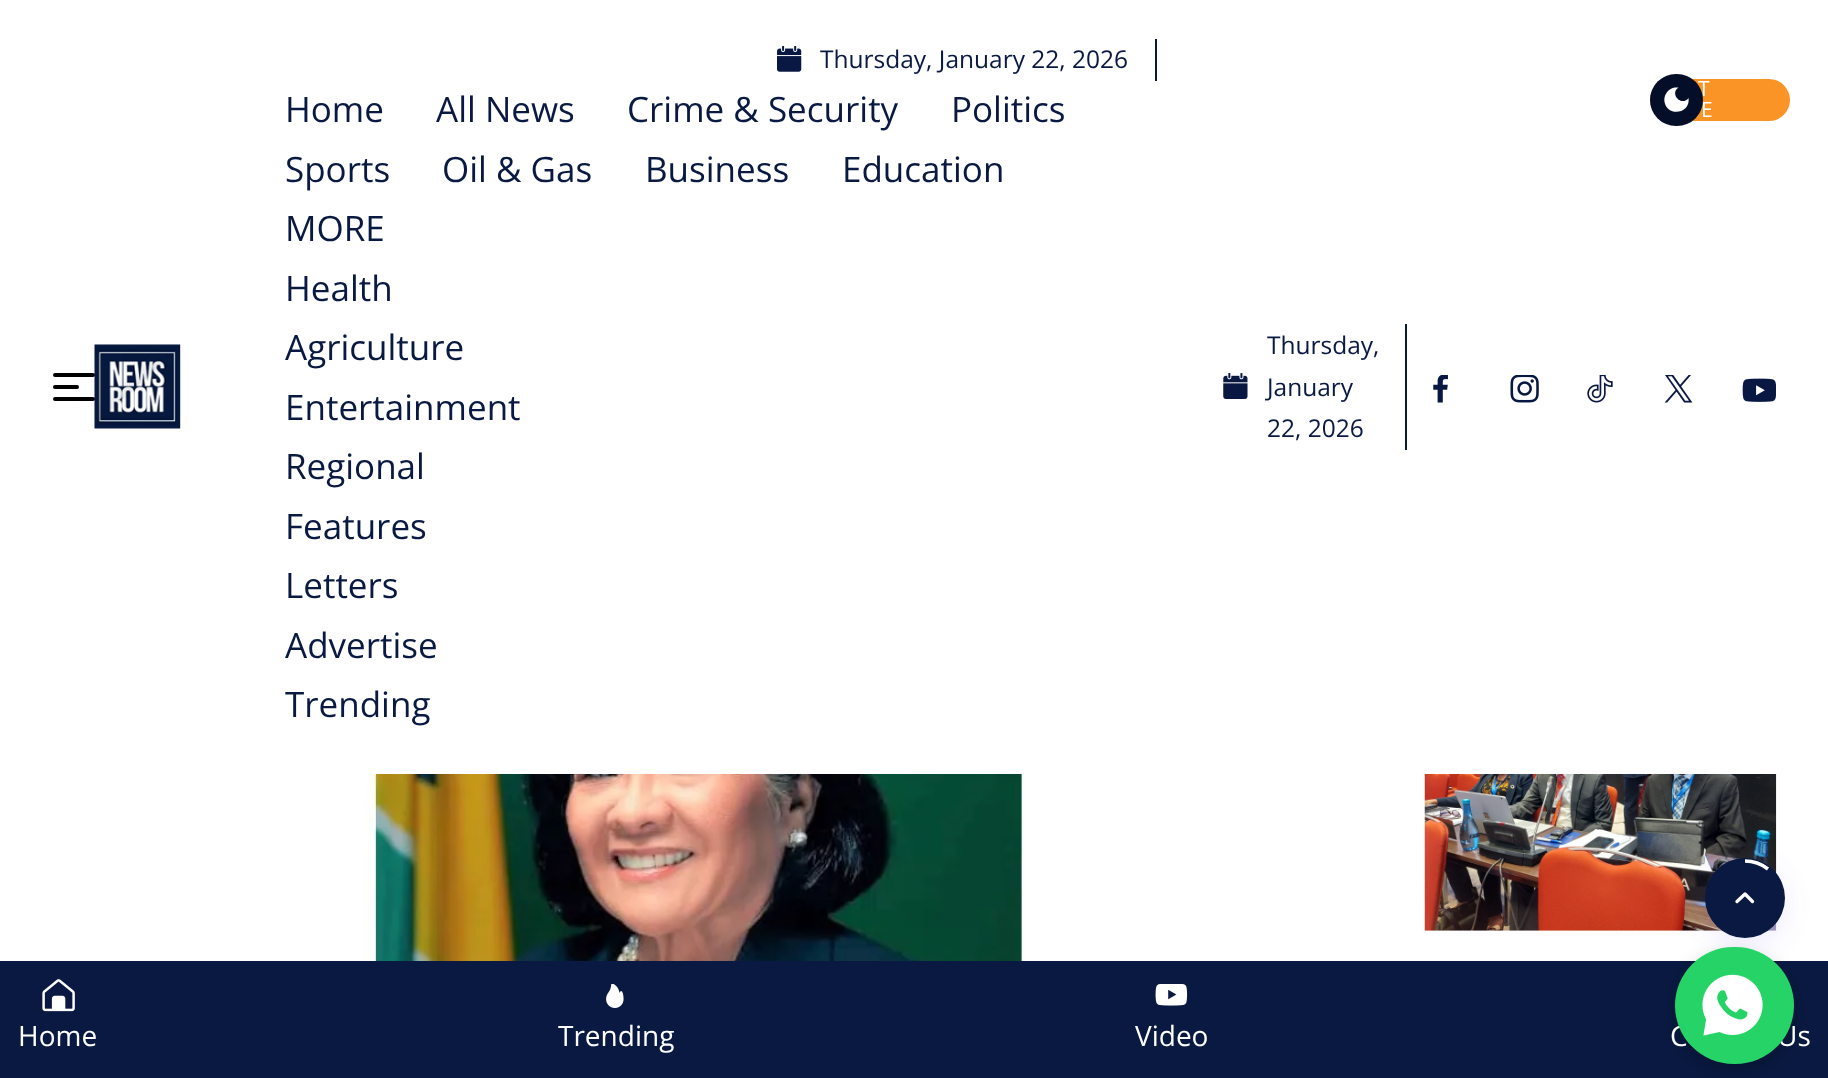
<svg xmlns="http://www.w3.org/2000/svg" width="1828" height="1078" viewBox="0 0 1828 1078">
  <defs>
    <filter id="blur1" x="-50%" y="-200%" width="200%" height="500%"><feGaussianBlur stdDeviation="13"/></filter>
    <filter id="blur2" x="-50%" y="-200%" width="200%" height="500%"><feGaussianBlur stdDeviation="9"/></filter>
  </defs>
  <rect width="100%" height="100%" fill="#ffffff"/>
  <image x="94" y="344" width="87" height="85" href="img1.png"/>
  <rect x="53" y="373" width="42" height="4" rx="2" fill="#000000"/>
  <rect x="53" y="385" width="26" height="4" rx="2" fill="#000000"/>
  <rect x="53" y="397" width="42" height="4" rx="2" fill="#000000"/>
  <rect x="1155" y="39" width="2" height="42" fill="#091941"/>
  <image x="777" y="46" width="25" height="26" href="img2.png"/>
  <text x="820" y="68" font-family="Open Sans" font-size="24.5" fill="#091941">Thursday, January 22, 2026</text>
  <text x="285" y="122" font-family="Open Sans" font-size="35" fill="#091941">Home</text>
  <text x="436" y="122" font-family="Open Sans" font-size="35" fill="#091941">All News</text>
  <text x="627" y="122" font-family="Open Sans" font-size="35" fill="#091941">Crime &amp; Security</text>
  <text x="951" y="122" font-family="Open Sans" font-size="35" fill="#091941">Politics</text>
  <text x="285" y="182" font-family="Open Sans" font-size="35" fill="#091941">Sports</text>
  <text x="442" y="182" font-family="Open Sans" font-size="35" fill="#091941">Oil &amp; Gas</text>
  <text x="645" y="182" font-family="Open Sans" font-size="35" fill="#091941">Business</text>
  <text x="842" y="182" font-family="Open Sans" font-size="35" fill="#091941">Education</text>
  <text x="285" y="241" font-family="Open Sans" font-size="35" fill="#091941">MORE</text>
  <text x="285" y="301" font-family="Open Sans" font-size="35" fill="#091941">Health</text>
  <text x="285" y="360" font-family="Open Sans" font-size="35" fill="#091941">Agriculture</text>
  <text x="285" y="420" font-family="Open Sans" font-size="35" fill="#091941">Entertainment</text>
  <text x="285" y="479" font-family="Open Sans" font-size="35" fill="#091941">Regional</text>
  <text x="285" y="539" font-family="Open Sans" font-size="35" fill="#091941">Features</text>
  <text x="285" y="598" font-family="Open Sans" font-size="35" fill="#091941">Letters</text>
  <text x="285" y="658" font-family="Open Sans" font-size="35" fill="#091941">Advertise</text>
  <text x="285" y="717" font-family="Open Sans" font-size="35" fill="#091941">Trending</text>
  <rect x="1405" y="324" width="2" height="126" fill="#091941"/>
  <text x="1267" y="354" font-family="Open Sans" font-size="24.5" fill="#091941">Thursday,</text>
  <image x="1223" y="373" width="25" height="26" href="img3.png"/>
  <text x="1267" y="396" font-family="Open Sans" font-size="24.5" fill="#091941">January</text>
  <text x="1267" y="437" font-family="Open Sans" font-size="24.5" fill="#091941">22, 2026</text>
  <image x="1433" y="375" width="15" height="28" href="img4.png"/>
  <image x="1510" y="375" width="29" height="28" href="img5.png"/>
  <image x="1587" y="375" width="26" height="28" href="img6.png"/>
  <image x="1664" y="375" width="29" height="28" href="img7.png"/>
  <image x="1742" y="378" width="34" height="24" href="img8.png"/>
  <rect x="1650" y="79" width="140" height="42" rx="21" fill="#fb9426"/>
  <text x="1698" y="96" font-family="Open Sans" font-size="21" fill="#ffffff">T</text>
  <text x="1701" y="117" font-family="Open Sans" font-size="21" fill="#ffffff">E</text>
  <rect x="1650" y="74" width="53" height="52" rx="26" fill="#040e29"/>
  <path d="M1676.5 87.5C1672.5 87.5 1668.5 89.5 1666.5 93C1664.5 95.5 1664 99 1664.5 102C1667.5 117.5 1691 113.5 1688.5 98C1682 107 1669 94 1678.5 87.5Z" fill="#ffffff"/>
  <image x="364" y="774" width="662" height="187" href="img9.png"/>
  <image x="1424" y="774" width="353" height="157" href="img10.png"/>
  <rect x="0" y="961" width="1828" height="117" fill="#091941"/>
  <rect x="1705" y="865" width="80" height="80" rx="40" fill="#7d6bfa" fill-opacity="0.15" filter="url(#blur1)"/>
  <circle cx="1745" cy="898" r="40" fill="#091941"/>
  <path d="M1745 861C1753.5 861 1761.5 864 1768 869" fill="none" stroke="#ffffff" stroke-width="3.5"/>
  <path d="M1752.5 901.5L1745 894L1737 901.5" fill="none" stroke="#ffffff" stroke-width="3.3" stroke-linecap="round" stroke-linejoin="round"/>
  <rect x="1675" y="954" width="119" height="117" rx="58.5" fill="#000000" fill-opacity="0.2" filter="url(#blur2)"/>
  <text x="1670" y="1046" font-family="Open Sans" font-size="28" fill="#ffffff">C</text>
  <text x="1777" y="1046" font-family="Open Sans" font-size="28" fill="#ffffff">Us</text>
  <rect x="1675" y="947" width="119" height="117" rx="58.5" fill="#25d366"/>
  <image x="1702" y="974" width="61" height="62" href="img11.png"/>
  <image x="42" y="979" width="33" height="33" href="img12.png"/>
  <text x="18" y="1046" font-family="Open Sans" font-size="28" fill="#ffffff">Home</text>
  <image x="606" y="984" width="18" height="24" href="img13.png"/>
  <text x="558" y="1046" font-family="Open Sans" font-size="28" fill="#ffffff">Trending</text>
  <image x="1155" y="984" width="33" height="22" href="img14.png"/>
  <text x="1135" y="1046" font-family="Open Sans" font-size="28" fill="#ffffff">Video</text>
</svg>
